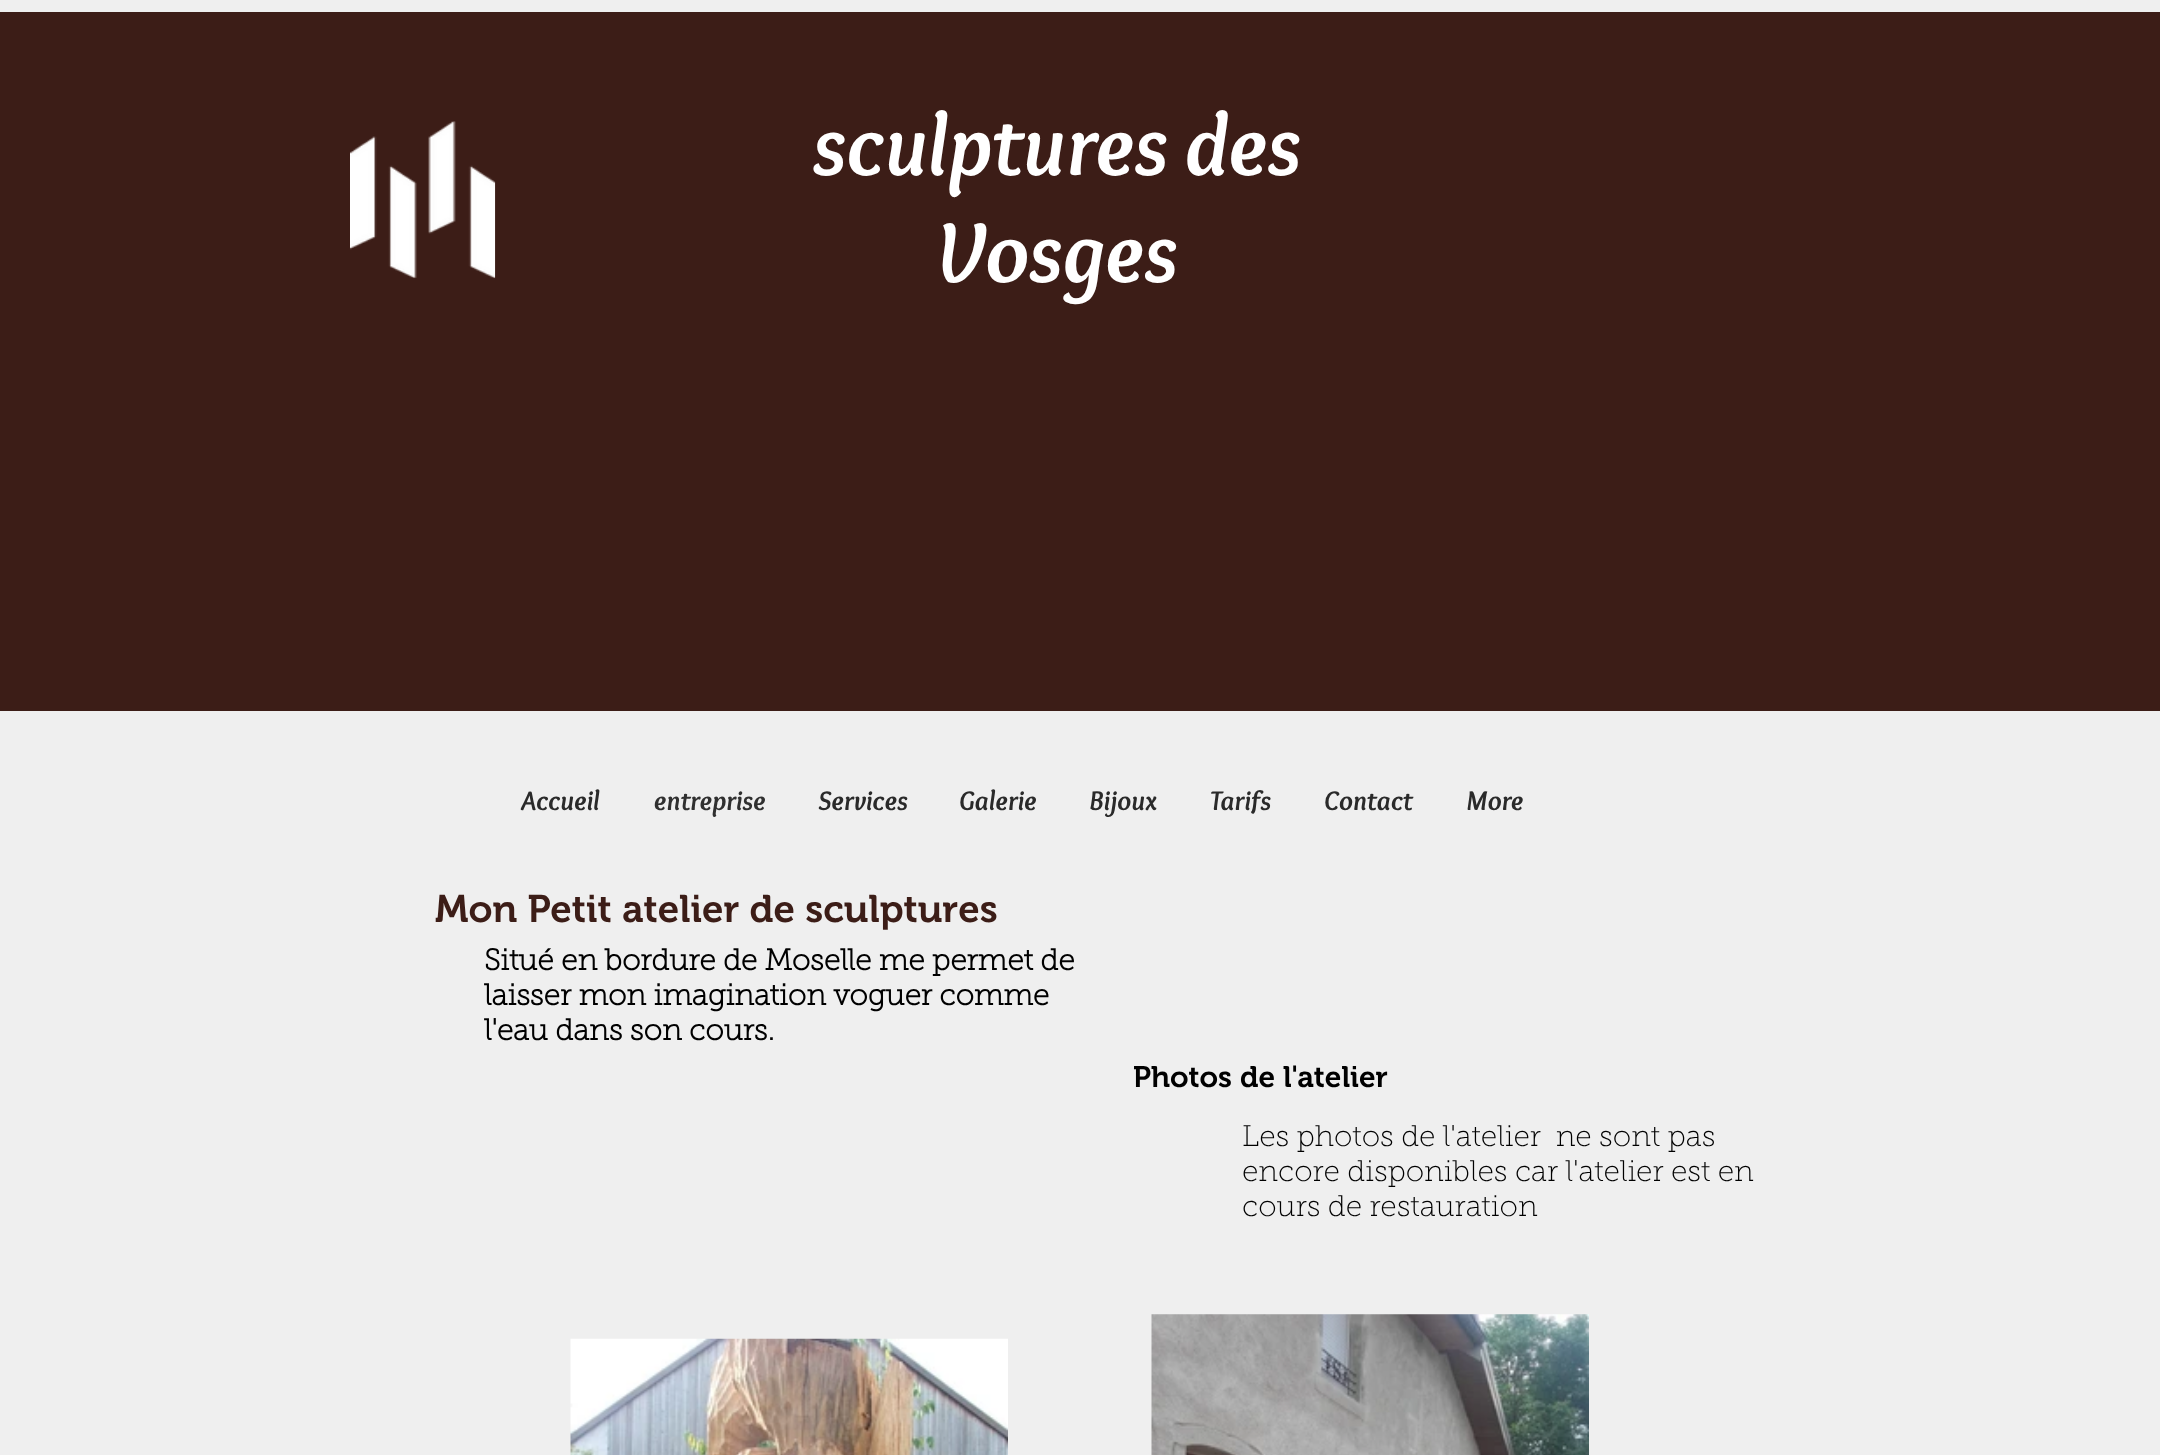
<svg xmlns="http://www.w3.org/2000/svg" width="2160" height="1455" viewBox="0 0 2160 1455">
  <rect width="100%" height="100%" fill="#efefef"/>
  <rect x="0" y="12" width="2160" height="699" fill="#3c1d17"/>
  <image x="350" y="121" width="146" height="158" href="img1.png"/>
  <text x="813" y="175" font-family="Overlock" font-size="87.5" font-weight="bold" font-style="italic" fill="#ffffff">sculptures des</text>
  <text x="936" y="282" font-family="Overlock" font-size="87.5" font-weight="bold" font-style="italic" fill="#ffffff">Vosges</text>
  <text x="521" y="810" font-family="Overlock" font-size="28" font-weight="bold" font-style="italic" fill="#2a2a2a">Accueil</text>
  <text x="654" y="810" font-family="Overlock" font-size="28" font-weight="bold" font-style="italic" fill="#303030">entreprise</text>
  <text x="818" y="810" font-family="Overlock" font-size="28" font-weight="bold" font-style="italic" fill="#2a2a2a">Services</text>
  <text x="959" y="810" font-family="Overlock" font-size="28" font-weight="bold" font-style="italic" fill="#2a2a2a">Galerie</text>
  <text x="1089" y="810" font-family="Overlock" font-size="28" font-weight="bold" font-style="italic" fill="#2a2a2a">Bijoux</text>
  <text x="1210" y="810" font-family="Overlock" font-size="28" font-weight="bold" font-style="italic" fill="#2a2a2a">Tarifs</text>
  <text x="1324" y="810" font-family="Overlock" font-size="28" font-weight="bold" font-style="italic" fill="#2a2a2a">Contact</text>
  <text x="1466" y="810" font-family="Overlock" font-size="28" font-weight="bold" font-style="italic" fill="#2a2a2a">More</text>
  <text x="435" y="922" font-family="'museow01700'" font-size="38.5" font-weight="600" fill="#3c1d17">Mon Petit atelier de sculptures</text>
  <text x="484" y="970" font-family="'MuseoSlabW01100'" font-size="29.75" font-weight="bold" fill="#000000">Situé en bordure de Moselle me permet de</text>
  <text x="484" y="1005" font-family="'MuseoSlabW01100'" font-size="29.75" font-weight="bold" fill="#000000">laisser mon imagination voguer comme</text>
  <text x="484" y="1040" font-family="'MuseoSlabW01100'" font-size="29.75" font-weight="bold" fill="#000000">l'eau dans son cours.</text>
  <text x="1133" y="1087" font-family="'museow01700'" font-size="29.75" font-weight="600" fill="#000000">Photos de l'atelier</text>
  <text x="1242" y="1146" font-family="'MuseoSlabW01100'" font-size="29.75" font-weight="100" fill="#000000" xml:space="preserve">Les photos de l'atelier  ne sont pas</text>
  <text x="1242" y="1181" font-family="'MuseoSlabW01100'" font-size="29.75" font-weight="100" fill="#000000">encore disponibles car l'atelier est en</text>
  <text x="1242" y="1216" font-family="'MuseoSlabW01100'" font-size="29.75" font-weight="100" fill="#000000">cours de restauration</text>
  <image x="570" y="1338" width="438" height="117" href="img2.png"/>
  <image x="1151" y="1314" width="438" height="141" href="img3.png"/>
</svg>
